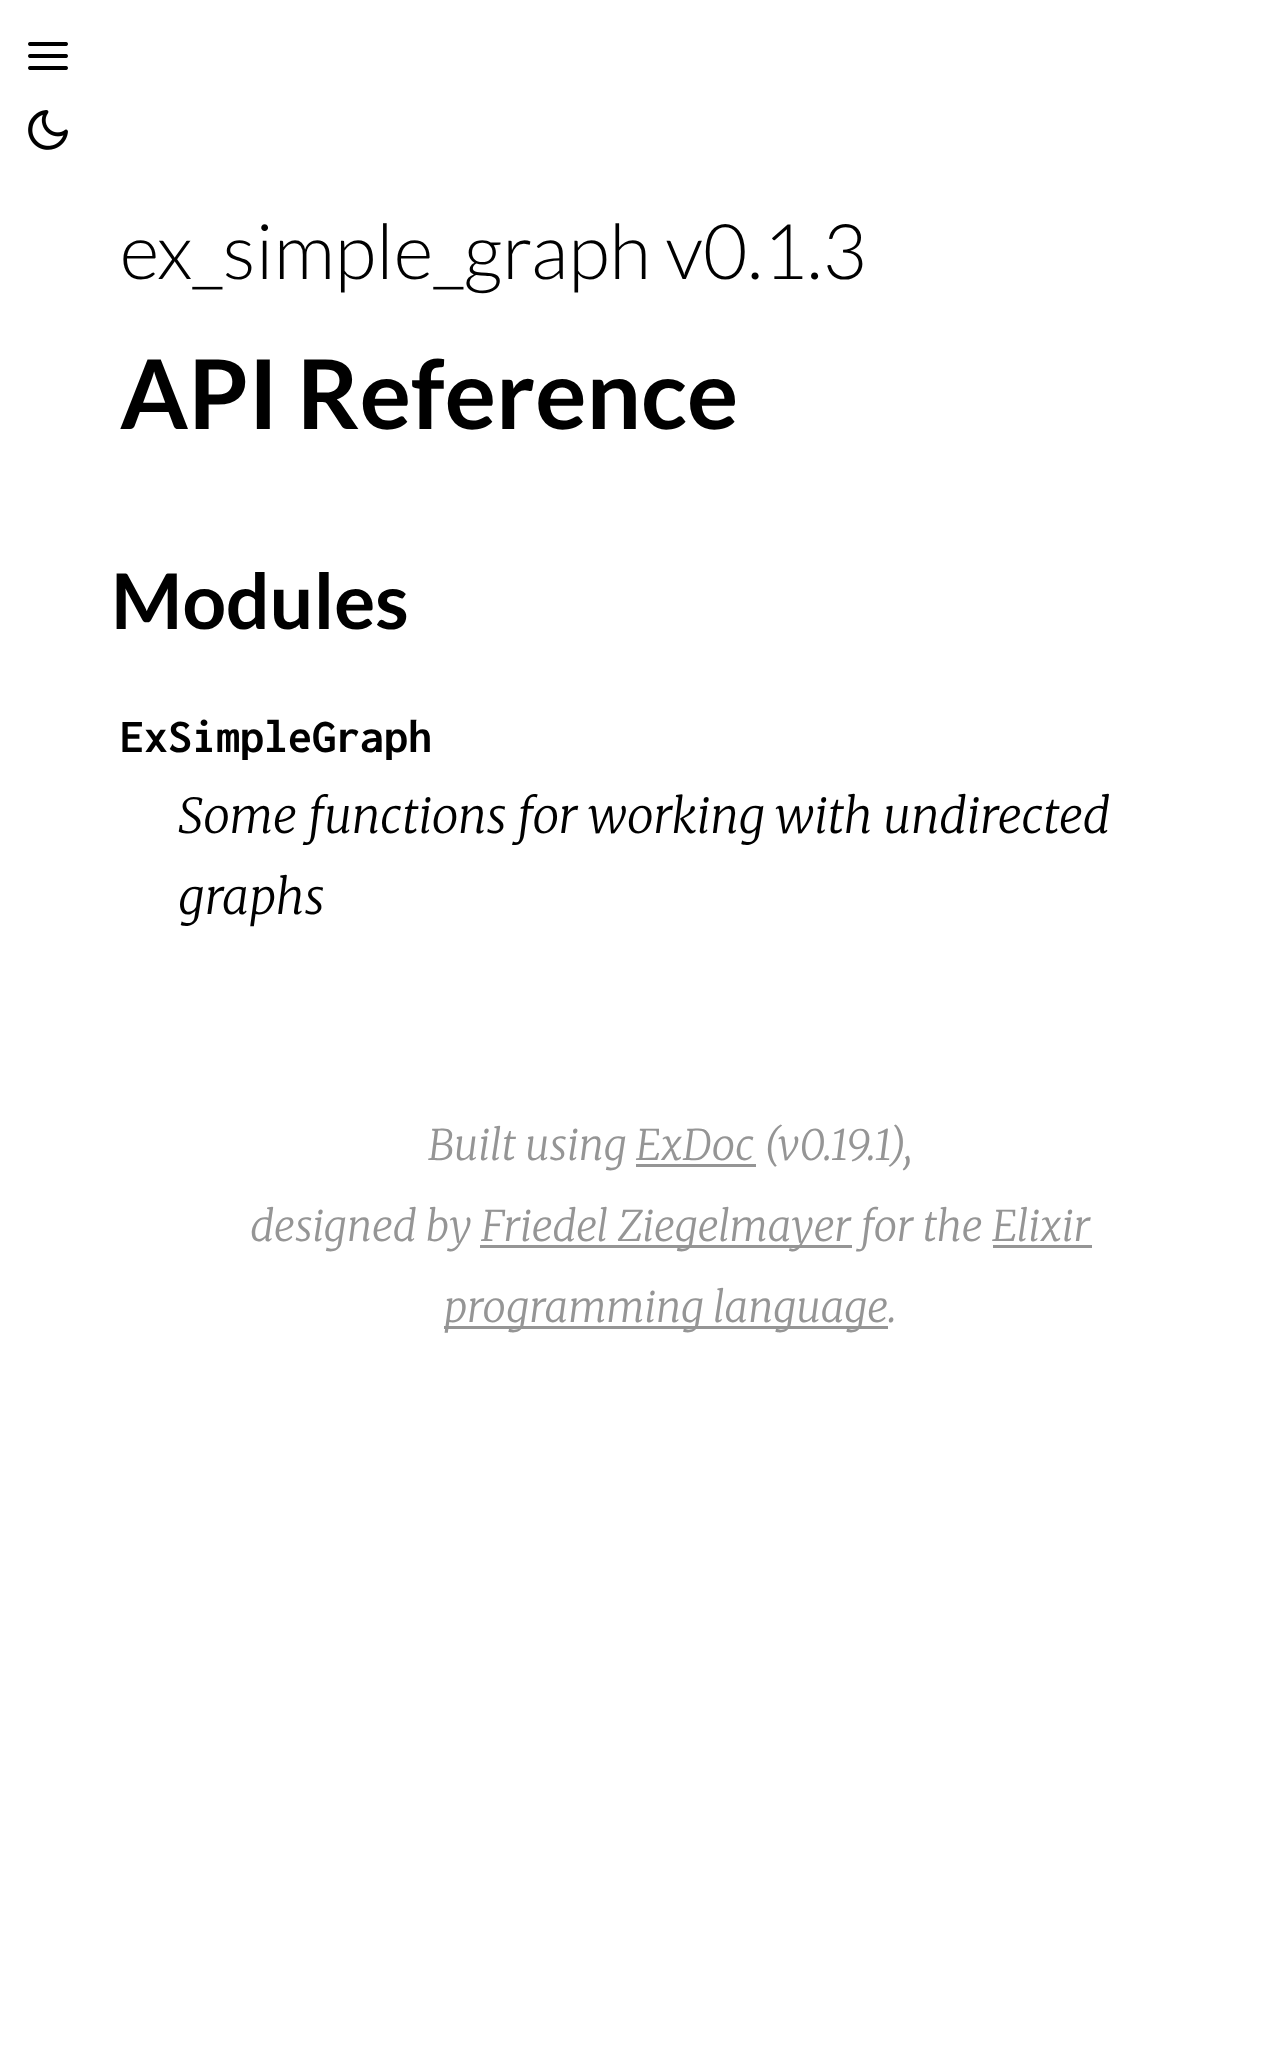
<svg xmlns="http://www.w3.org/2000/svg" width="1279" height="2061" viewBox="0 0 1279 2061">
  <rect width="100%" height="100%" fill="#ffffff"/>
  <image x="28" y="42" width="40" height="28" href="img1.png"/>
  <image x="28" y="110" width="40" height="40" href="img2.png"/>
  <text x="120" y="279" font-family="Lato" font-size="76.75" font-weight="300" fill="#000000">ex_simple_graph v0.1.3</text>
  <text x="120" y="429" font-family="Lato" font-size="96" font-weight="bold" fill="#000000">API Reference</text>
  <text x="111" y="629" font-family="Lato" font-size="76.75" font-weight="bold" fill="#000000">Modules</text>
  <text x="120" y="752" font-family="Inconsolata" font-size="48" font-weight="bold" fill="#000000">ExSimpleGraph</text>
  <text x="178" y="833" font-family="Merriweather" font-size="48" font-weight="300" font-style="italic" fill="#000000">Some functions for working with undirected</text>
  <text x="178" y="914" font-family="Merriweather" font-size="48" font-weight="300" font-style="italic" fill="#000000">graphs</text>
  <text x="428" y="1160" font-family="Merriweather" font-size="42" font-weight="300" font-style="italic" fill="#959595">Built using ExDoc (v0.19.1),</text>
  <rect x="636" y="1164" width="120" height="3" fill="#959595"/>
  <text x="250" y="1241" font-family="Merriweather" font-size="42" font-weight="300" font-style="italic" fill="#959595">designed by</text>
  <rect x="480" y="1245" width="372" height="3" fill="#959595"/>
  <text x="481" y="1241" font-family="Merriweather" font-size="42" font-weight="300" font-style="italic" fill="#959595">Friedel Ziegelmayer for the Elixir</text>
  <rect x="444" y="1326" width="444" height="3" fill="#959595"/>
  <text x="444" y="1322" font-family="Merriweather" font-size="42" font-weight="300" font-style="italic" fill="#959595">programming language</text>
  <rect x="993" y="1245" width="99" height="3" fill="#959595"/>
  <text x="888" y="1322" font-family="Merriweather" font-size="42" font-weight="300" font-style="italic" fill="#959595">.</text>
</svg>
